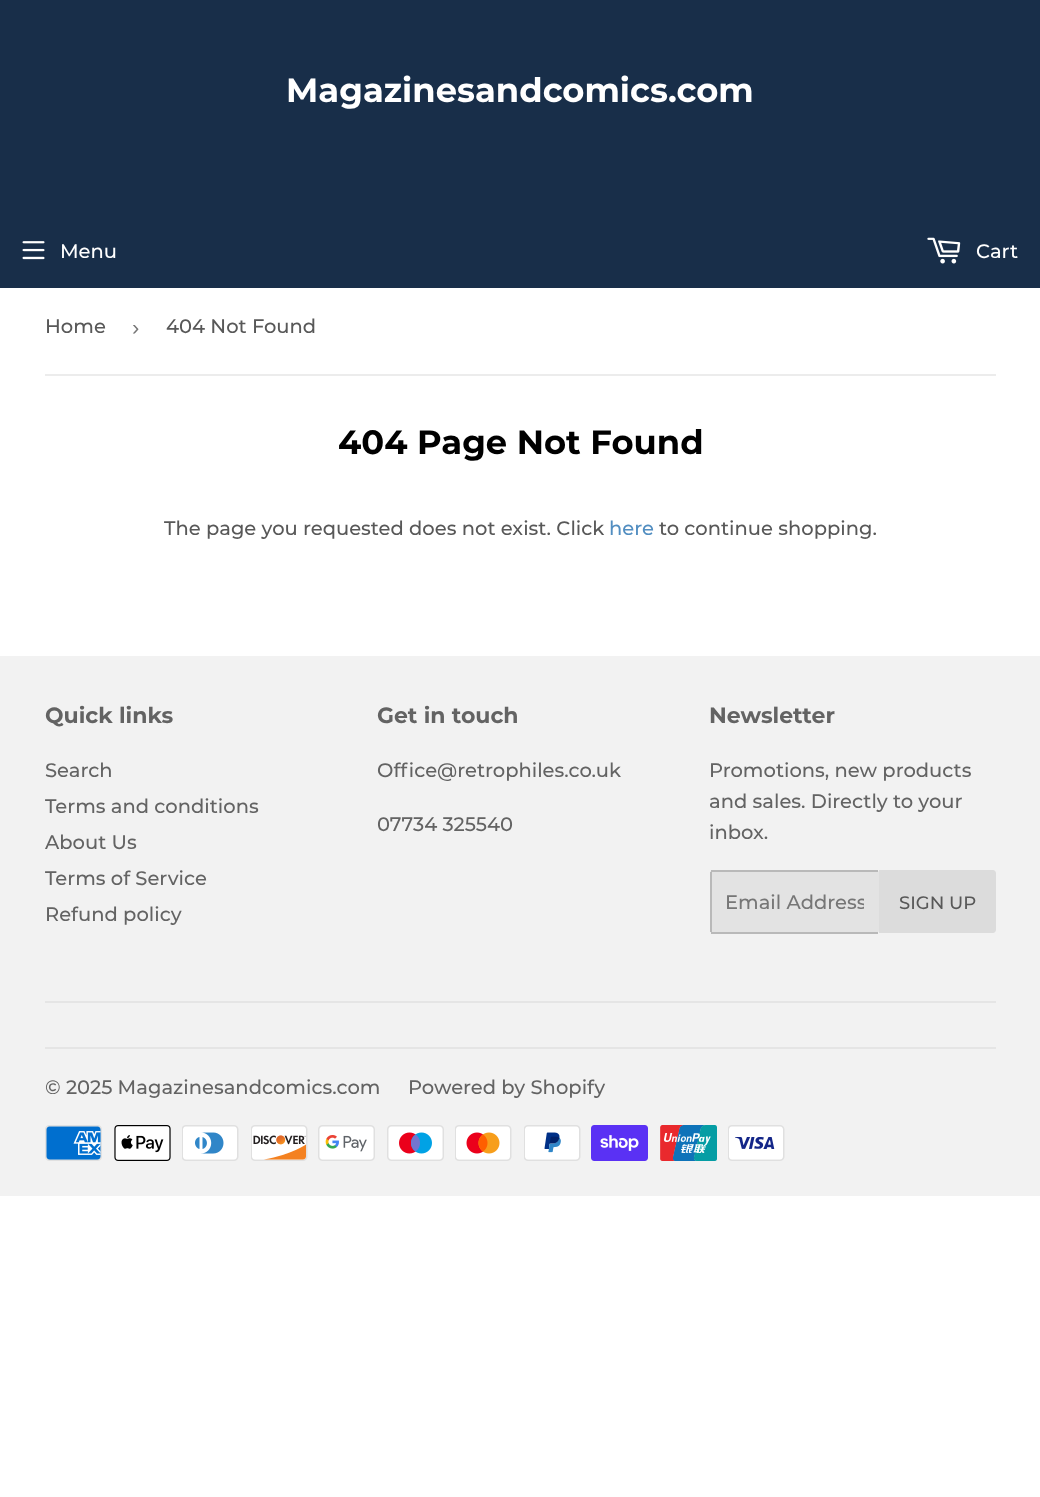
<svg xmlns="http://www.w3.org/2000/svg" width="1040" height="1497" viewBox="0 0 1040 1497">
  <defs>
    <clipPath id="clip1"><rect x="726" y="890" width="138" height="24"/></clipPath>
  </defs>
  <rect width="100%" height="100%" fill="#ffffff"/>
  <rect x="0" y="0" width="1040" height="288" fill="#182e49"/>
  <text x="286" y="102" font-family="Montserrat" font-size="33.75" font-weight="bold" fill="#ffffff">Magazinesandcomics.com</text>
  <image x="22" y="241" width="23" height="19" href="img1.png"/>
  <text x="60" y="258" font-family="Montserrat" font-size="19.5" font-weight="500" fill="#ffffff">Menu</text>
  <image x="927" y="237" width="34" height="27" href="img2.png"/>
  <text x="976" y="258" font-family="Montserrat" font-size="19.5" font-weight="500" fill="#ffffff">Cart</text>
  <rect x="45" y="374" width="951" height="2" fill="#ececec"/>
  <text x="45" y="333" font-family="Montserrat" font-size="19.5" font-weight="500" fill="#585858">Home</text>
  <text x="132" y="335" font-family="Liberation Sans" font-size="22" fill="#767676">›</text>
  <text x="166" y="333" font-family="Montserrat" font-size="19.5" font-weight="500" fill="#585858">404 Not Found</text>
  <text x="338" y="454" font-family="Montserrat" font-size="33.75" font-weight="bold" fill="#000000">404 Page Not Found</text>
  <text x="164" y="535" font-family="Montserrat" font-size="19.5" font-weight="500" fill="#585858">The page you requested does not exist. Click</text>
  <text x="609" y="535" font-family="Montserrat" font-size="19.5" font-weight="500" fill="#528ec1">here</text>
  <text x="659" y="535" font-family="Montserrat" font-size="19.5" font-weight="500" fill="#585858">to continue shopping.</text>
  <rect x="0" y="656" width="1040" height="540" fill="#f2f2f2"/>
  <text x="45" y="723" font-family="Montserrat" font-size="22" font-weight="bold" fill="#636363">Quick links</text>
  <text x="45" y="777" font-family="Montserrat" font-size="19.5" font-weight="500" fill="#636363">Search</text>
  <text x="45" y="813" font-family="Montserrat" font-size="19.5" font-weight="500" fill="#636363">Terms and conditions</text>
  <text x="45" y="849" font-family="Montserrat" font-size="19.5" font-weight="500" fill="#636363">About Us</text>
  <text x="45" y="885" font-family="Montserrat" font-size="19.5" font-weight="500" fill="#636363">Terms of Service</text>
  <text x="45" y="921" font-family="Montserrat" font-size="19.5" font-weight="500" fill="#636363">Refund policy</text>
  <text x="377" y="723" font-family="Montserrat" font-size="22" font-weight="bold" fill="#636363">Get in touch</text>
  <text x="377" y="777" font-family="Montserrat" font-size="19.5" font-weight="500" fill="#636363">Office@retrophiles.co.uk</text>
  <text x="377" y="831" font-family="Montserrat" font-size="19.5" font-weight="500" fill="#636363">07734 325540</text>
  <text x="709" y="723" font-family="Montserrat" font-size="22" font-weight="bold" fill="#636363">Newsletter</text>
  <text x="709" y="777" font-family="Montserrat" font-size="19.5" font-weight="500" fill="#636363">Promotions, new products</text>
  <text x="709" y="808" font-family="Montserrat" font-size="19.5" font-weight="500" fill="#636363">and sales. Directly to your</text>
  <text x="709" y="839" font-family="Montserrat" font-size="19.5" font-weight="500" fill="#636363">inbox.</text>
  <rect x="710" y="870" width="169" height="63" rx="3" fill="#e3e3e3"/>
  <rect x="711" y="870" width="167" height="2" fill="#b9b9b9"/>
  <rect x="711" y="932" width="167" height="2" fill="#b9b9b9"/>
  <rect x="710" y="872" width="2" height="60" fill="#b9b9b9"/>
  <g clip-path="url(#clip1)">
    <text x="725" y="909" font-family="Montserrat" font-size="19.5" font-weight="500" fill="#767676">Email Address</text>
  </g>
  <path d="M879 870H993C994.5 870 996 871.5 996 873V930C996 931.5 994.5 933 993 933H879Z" fill="#dcdcdc"/>
  <text x="899" y="909" font-family="Montserrat" font-size="18" font-weight="500" fill="#585858">SIGN UP</text>
  <rect x="45" y="1001" width="951" height="2" fill="#e5e5e5"/>
  <rect x="45" y="1047" width="951" height="2" fill="#e5e5e5"/>
  <text x="45" y="1094" font-family="Montserrat" font-size="19.5" font-weight="500" fill="#636363">© 2025 Magazinesandcomics.com</text>
  <text x="408" y="1094" font-family="Montserrat" font-size="19.5" font-weight="500" fill="#636363">Powered by Shopify</text>
  <image x="45" y="1125" width="57" height="36" href="img3.png"/>
  <image x="114" y="1125" width="57" height="36" href="img4.png"/>
  <image x="182" y="1125" width="57" height="36" href="img5.png"/>
  <image x="251" y="1125" width="57" height="36" href="img6.png"/>
  <image x="318" y="1125" width="57" height="36" href="img7.png"/>
  <image x="387" y="1125" width="57" height="36" href="img8.png"/>
  <image x="455" y="1125" width="57" height="36" href="img9.png"/>
  <image x="524" y="1125" width="57" height="36" href="img10.png"/>
  <image x="591" y="1125" width="57" height="36" href="img11.png"/>
  <image x="660" y="1125" width="57" height="36" href="img12.png"/>
  <image x="728" y="1125" width="57" height="36" href="img13.png"/>
</svg>
